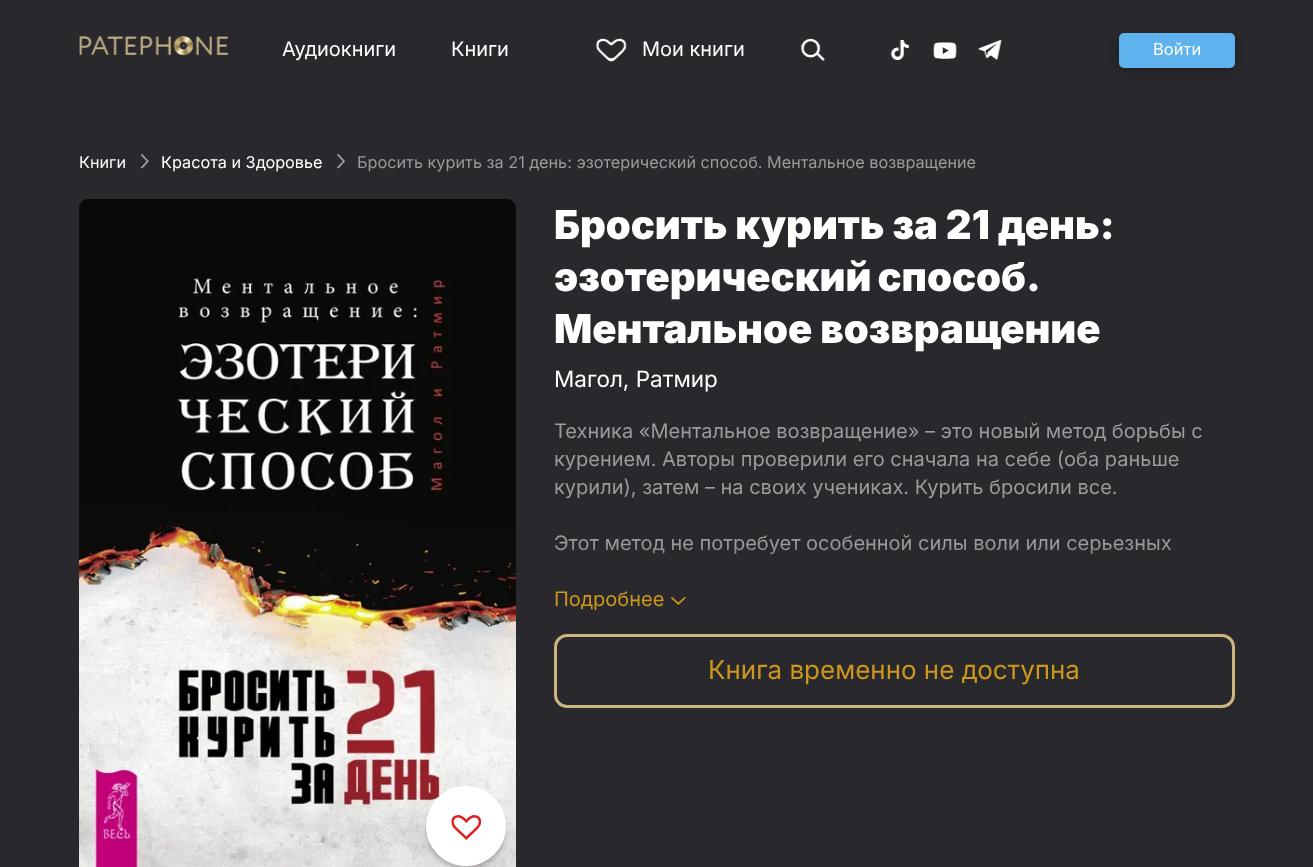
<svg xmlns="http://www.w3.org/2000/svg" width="1313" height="867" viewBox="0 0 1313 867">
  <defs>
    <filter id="blur1" x="-50%" y="-200%" width="200%" height="500%"><feGaussianBlur stdDeviation="6"/></filter>
    <clipPath id="clip1"><path d="M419 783H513V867H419ZM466 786C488 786 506 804 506 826C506 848 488 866 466 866C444 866 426 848 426 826C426 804 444 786 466 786Z" clip-rule="evenodd"/></clipPath>
    <filter id="blur2" x="-50%" y="-200%" width="200%" height="500%"><feGaussianBlur stdDeviation="2"/></filter>
    <linearGradient id="g1" gradientUnits="userSpaceOnUse" x1="894" y1="545" x2="894" y2="585"><stop offset="0" stop-color="#28282d" stop-opacity="0"/><stop offset="1" stop-color="#28282d"/></linearGradient>
  </defs>
  <rect width="100%" height="100%" fill="#28282d"/>
  <image x="79" y="36" width="150" height="20" href="img1.png"/>
  <text x="282" y="56" font-family="Inter" font-size="20" fill="#ffffff">Аудиокниги</text>
  <text x="451" y="56" font-family="Inter" font-size="20" fill="#ffffff">Книги</text>
  <image x="595" y="38" width="32" height="24" href="img2.png"/>
  <text x="642" y="56" font-family="Inter" font-size="20" fill="#ffffff">Мои книги</text>
  <image x="800" y="38" width="25" height="23" href="img3.png"/>
  <image x="890" y="40" width="20" height="20" href="img4.png"/>
  <image x="933" y="42" width="24" height="17" href="img5.png"/>
  <image x="978" y="40" width="24" height="20" href="img6.png"/>
  <rect x="1119" y="35" width="116" height="35" rx="5" fill="#000000" fill-opacity="0.25" filter="url(#blur1)"/>
  <rect x="1119" y="33" width="116" height="35" rx="5" fill="#5eb2ee"/>
  <text x="1153" y="55" font-family="Inter" font-size="16.5" fill="#ffffff">Войти</text>
  <text x="79" y="168" font-family="Inter" font-size="16.25" fill="#ffffff">Книги</text>
  <image x="140" y="154" width="9" height="15" href="img7.png"/>
  <text x="161" y="168" font-family="Inter" font-size="16.25" fill="#ffffff">Красота и Здоровье</text>
  <image x="337" y="154" width="8" height="15" href="img8.png"/>
  <text x="357" y="168" font-family="Inter" font-size="16.25" fill="#9b9b9b">Бросить курить за 21 день: эзотерический способ. Ментальное возвращение</text>
  <image x="79" y="199" width="437" height="668" href="img9.png"/>
  <g clip-path="url(#clip1)">
    <rect x="426" y="790" width="80" height="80" rx="40" fill="#000000" fill-opacity="0.2" filter="url(#blur2)"/>
  </g>
  <circle cx="466" cy="826" r="40" fill="#ffffff"/>
  <image x="451" y="815" width="31" height="25" href="img10.png"/>
  <text x="554" y="239" font-family="Inter" font-size="40" font-weight="900" fill="#ffffff">Бросить курить за 21 день:</text>
  <text x="554" y="291" word-spacing="-2" font-family="Inter" font-size="40" font-weight="900" fill="#ffffff">эзотерический способ.</text>
  <text x="554" y="343" font-family="Inter" font-size="40" font-weight="900" fill="#ffffff">Ментальное возвращение</text>
  <text x="554" y="387" font-family="Inter" font-size="22.5" fill="#ffffff">Магол, Ратмир</text>
  <text x="554" y="438" font-family="Inter" font-size="20" fill="#9b9b9b">Техника «Ментальное возвращение» – это новый метод борьбы с</text>
  <text x="554" y="466" font-family="Inter" font-size="20" fill="#9b9b9b">курением. Авторы проверили его сначала на себе (оба раньше</text>
  <text x="554" y="494" font-family="Inter" font-size="20" fill="#9b9b9b">курили), затем – на своих учениках. Курить бросили все.</text>
  <text x="554" y="550" font-family="Inter" font-size="20" fill="#9b9b9b">Этот метод не потребует особенной силы воли или серьезных</text>
  <rect x="555" y="546" width="616" height="9" fill="url(#g1)"/>
  <text x="554" y="606" font-family="Inter" font-size="20" fill="#cd971d">Подробнее</text>
  <image x="671" y="596" width="15" height="9" href="img11.png"/>
  <rect x="555.5" y="635.5" width="678" height="71" rx="11.5" fill="none" stroke="#cdb67d" stroke-width="3"/>
  <text x="708" y="679" font-family="Inter" font-size="26" fill="#cd971d">Книга временно не доступна</text>
</svg>
